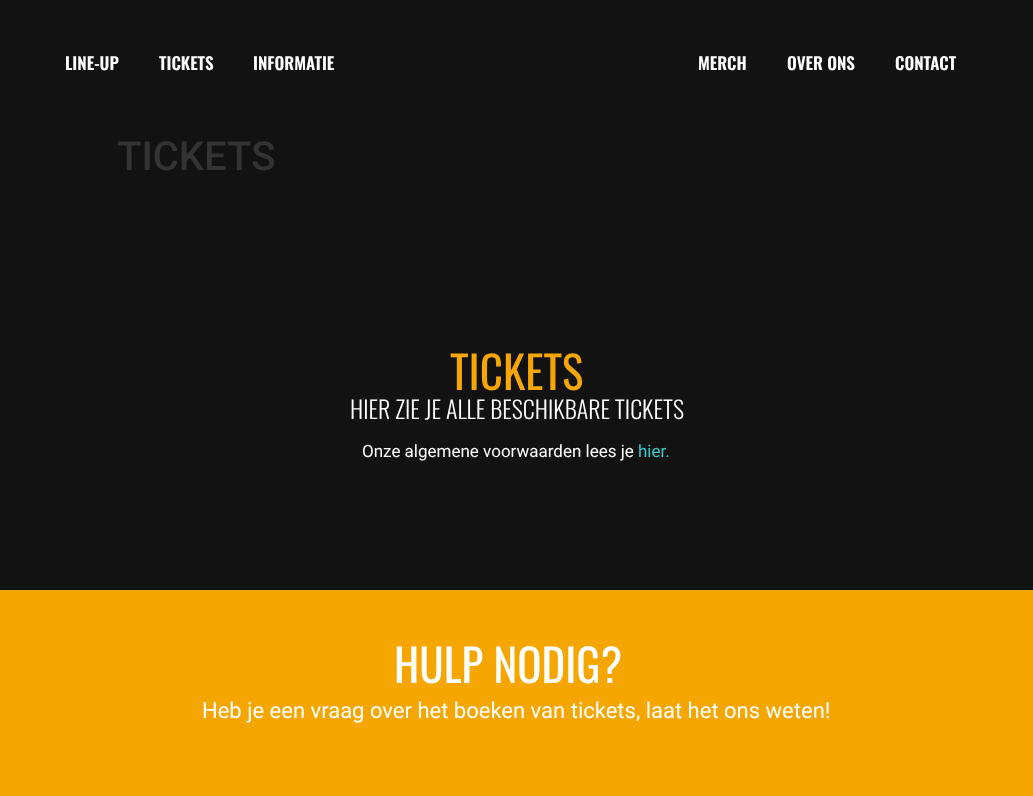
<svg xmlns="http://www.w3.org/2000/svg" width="1033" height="796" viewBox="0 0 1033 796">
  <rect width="100%" height="100%" fill="#121212"/>
  <text x="65" y="70" font-family="Oswald" font-size="17" font-weight="600" fill="#ffffff">LINE-UP</text>
  <text x="159" y="70" font-family="Oswald" font-size="17" font-weight="600" fill="#ffffff">TICKETS</text>
  <text x="253" y="70" font-family="Oswald" font-size="17" font-weight="600" fill="#ffffff">INFORMATIE</text>
  <text x="698" y="70" font-family="Oswald" font-size="17" font-weight="600" fill="#ffffff">MERCH</text>
  <text x="787" y="70" font-family="Oswald" font-size="17" font-weight="600" fill="#ffffff">OVER ONS</text>
  <text x="895" y="70" font-family="Oswald" font-size="17" font-weight="600" fill="#ffffff">CONTACT</text>
  <text x="117" y="170" font-family="Roboto" font-size="40" font-weight="500" fill="#333333">TICKETS</text>
  <text x="450" y="390" font-family="Oswald" font-size="45" fill="#f6a600">TICKETS</text>
  <text x="350" y="419" font-family="Oswald" font-size="24" font-weight="300" fill="#ffffff">HIER ZIE JE ALLE BESCHIKBARE TICKETS</text>
  <text x="362" y="457" font-family="Roboto" font-size="17" fill="#ffffff">Onze algemene voorwaarden lees je</text>
  <text x="638" y="457" font-family="Roboto" font-size="17" fill="#33cccc">hier.</text>
  <rect x="0" y="590" width="1033" height="206" fill="#f6a600"/>
  <text x="394" y="683" font-family="Oswald" font-size="45" fill="#ffffff">HULP NODIG?</text>
  <text x="202" y="718" font-family="Roboto" font-size="22" fill="#ffffff">Heb je een vraag over het boeken van tickets, laat het ons weten!</text>
</svg>
